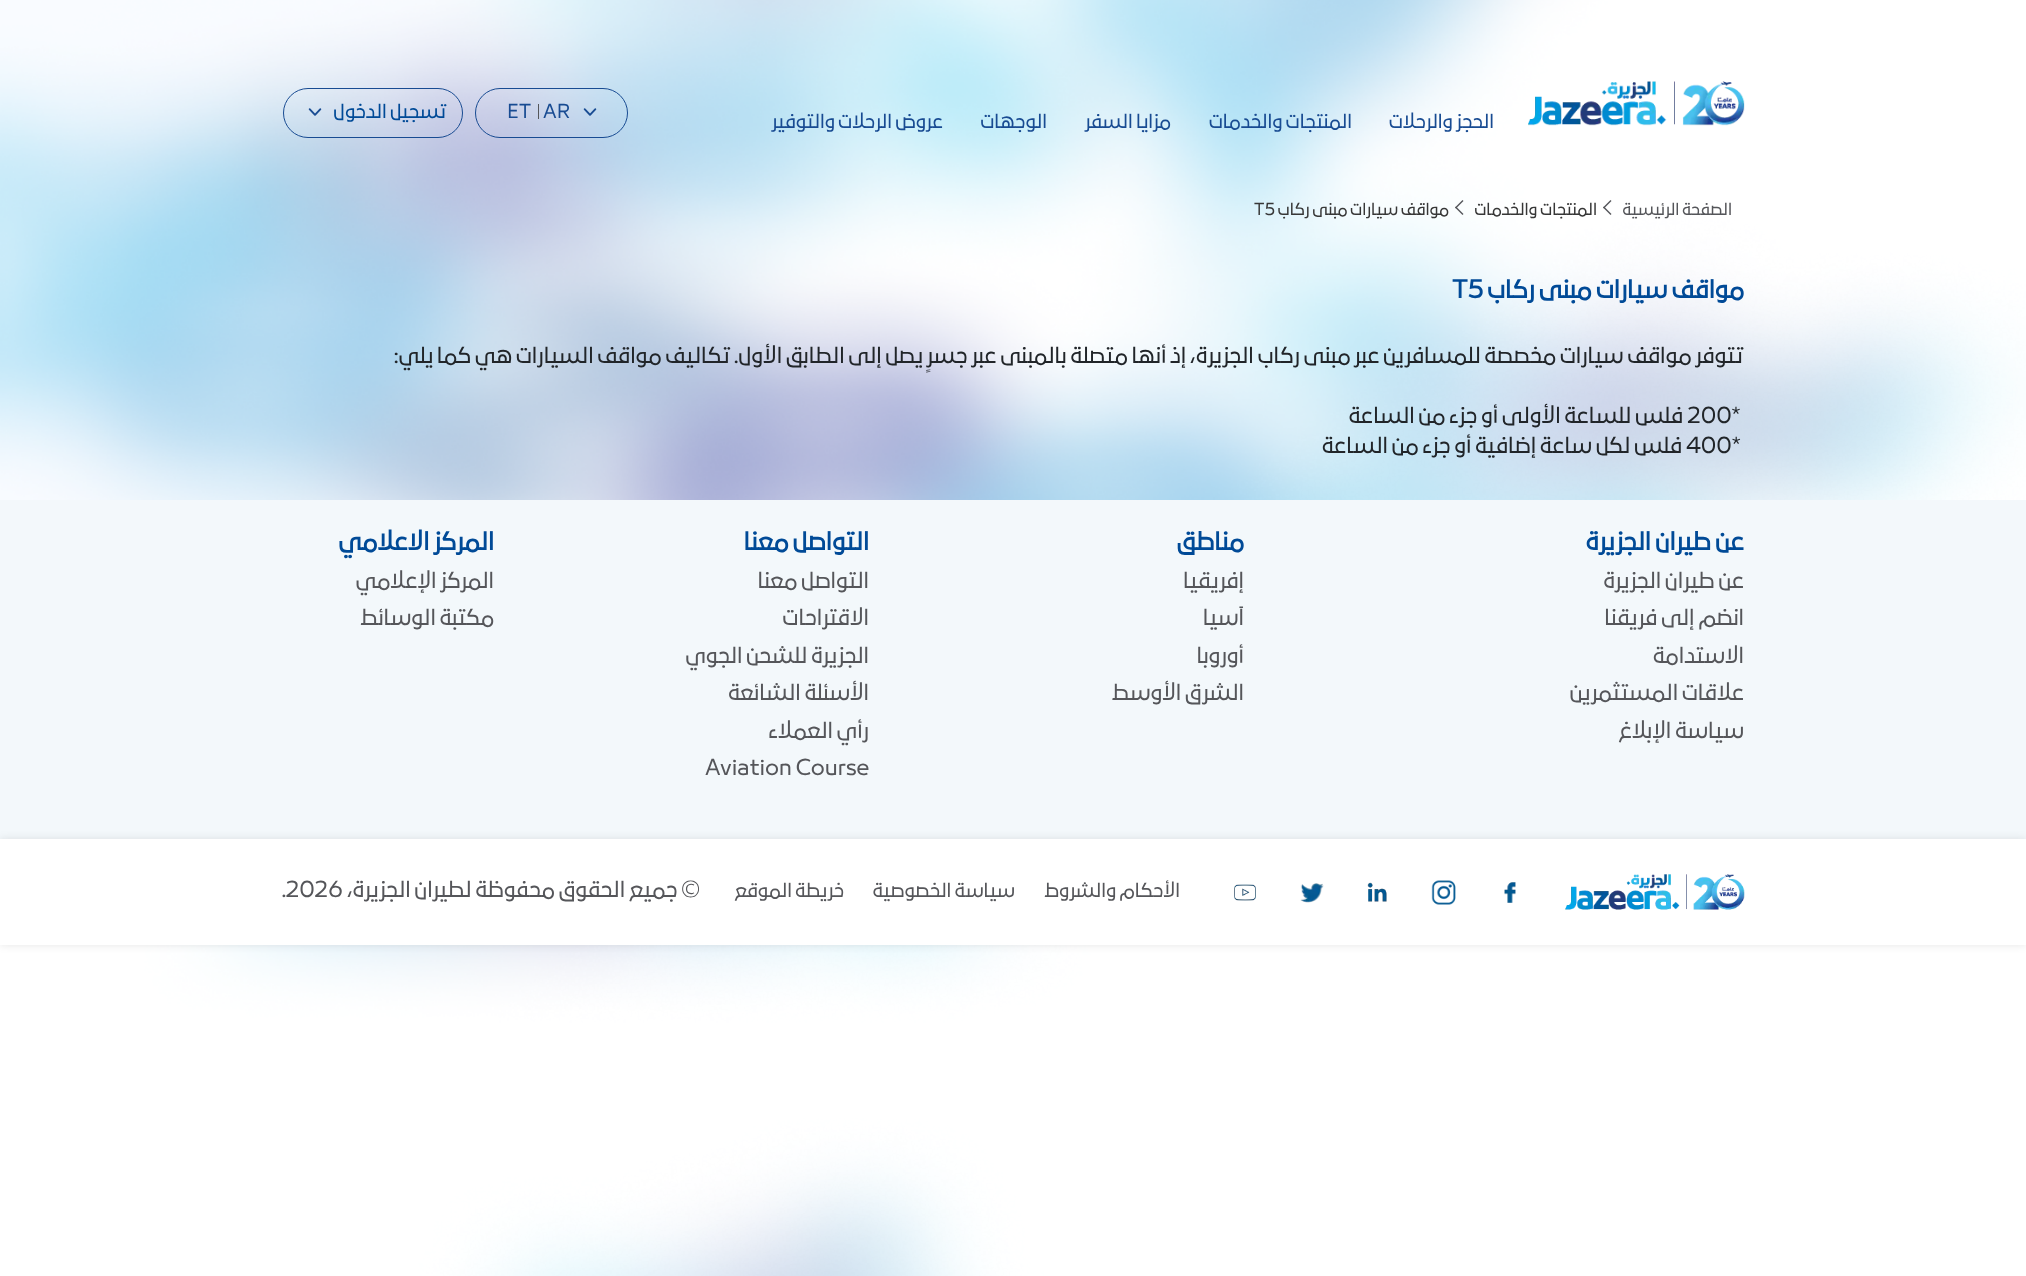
<svg xmlns="http://www.w3.org/2000/svg" width="2026" height="1276" viewBox="0 0 2026 1276">
  <defs>
    <filter id="blur1" x="-50%" y="-200%" width="200%" height="500%"><feGaussianBlur stdDeviation="4"/></filter>
  </defs>
  <rect width="100%" height="100%" fill="#ffffff"/>
  <image x="0" y="0" width="2026" height="1276" href="img1.png"/>
  <image x="1528" y="81" width="217" height="45" href="img2.png"/>
  <text x="1494" y="128" font-family="'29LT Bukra'" font-size="17.5" direction="rtl" fill="#184b92">الحجز والرحلات</text>
  <text x="1352" y="128" font-family="'29LT Bukra'" font-size="17.5" direction="rtl" fill="#184b92">المنتجات والخدمات</text>
  <text x="1171" y="128" font-family="'29LT Bukra'" font-size="17.5" direction="rtl" fill="#184b92">مزايا السفر</text>
  <text x="1047" y="128" font-family="'29LT Bukra'" font-size="17.5" direction="rtl" fill="#184b92">الوجهات</text>
  <text x="943" y="128" font-family="'29LT Bukra'" font-size="17.5" direction="rtl" fill="#184b92">عروض الرحلات والتوفير</text>
  <rect x="475.5" y="88.5" width="152" height="49" rx="24.5" fill="none" stroke="#184b92"/>
  <image x="583" y="108" width="14" height="8" href="img3.png"/>
  <text x="543" y="118" font-family="'29LT Bukra'" font-size="17.5" fill="#184b92">AR</text>
  <rect x="538" y="104" width="1" height="15" fill="#55565a"/>
  <text x="507" y="118" font-family="'29LT Bukra'" font-size="17.5" fill="#184b92">ET</text>
  <rect x="283.5" y="88.5" width="179" height="49" rx="24.5" fill="none" stroke="#184b92"/>
  <text x="447" y="118" font-family="'29LT Bukra'" font-size="17.5" direction="rtl" fill="#004a97">تسجيل الدخول</text>
  <image x="308" y="108" width="14" height="8" href="img4.png"/>
  <text x="1732" y="215" font-family="'29LT Bukra'" font-size="15" direction="rtl" fill="#55565a">الصفحة الرئيسية</text>
  <path d="M1610.5 215L1603 207.5L1604 206.5L1611.5 214Z" fill="#55565a"/>
  <path d="M1604 208.5L1603 207.5L1610.5 200L1611.5 201Z" fill="#55565a"/>
  <text x="1597" y="215" font-family="'29LT Bukra'" font-size="15" direction="rtl" fill="#373737">المنتجات والخدمات</text>
  <path d="M1462.5 215L1455 207.5L1456 206.5L1463.5 214Z" fill="#55565a"/>
  <path d="M1456 208.5L1455 207.5L1462.5 200L1463.5 201Z" fill="#55565a"/>
  <text x="1449" y="215" font-family="'29LT Bukra'" font-size="15" direction="rtl" fill="#373737">مواقف سيارات مبنى ركاب</text>
  <text x="1254" y="215" font-family="'29LT Bukra'" font-size="15" fill="#373737">T5</text>
  <text x="1744" y="298" font-family="'29LT Bukra'" font-size="22.5" font-weight="bold" direction="rtl" fill="#004a97">مواقف سيارات مبنى ركاب</text>
  <text x="1452" y="298" font-family="'29LT Bukra'" font-size="22.5" font-weight="bold" fill="#004a97">T5</text>
  <text x="1744" y="363" font-family="'29LT Bukra'" font-size="20" direction="rtl" fill="#212529">تتوفر مواقف سيارات مخصصة للمسافرين عبر مبنى ركاب الجزيرة، إذ أنها متصلة بالمبنى عبر جسرٍ يصل إلى الطابق الأول. تكاليف مواقف السيارات هي كما يلي:</text>
  <text x="1687" y="423" font-family="'29LT Bukra'" font-size="20" fill="#212529">200*</text>
  <text x="1683" y="423" font-family="'29LT Bukra'" font-size="20" direction="rtl" fill="#212529">فلس للساعة الأولى أو جزء من الساعة</text>
  <text x="1686" y="453" font-family="'29LT Bukra'" font-size="20" fill="#212529">400*</text>
  <text x="1682" y="453" font-family="'29LT Bukra'" font-size="20" direction="rtl" fill="#212529">فلس لكل ساعة إضافية أو جزء من الساعة</text>
  <rect x="0" y="500" width="2026" height="339" fill="#f3f8fb"/>
  <text x="1744" y="550" font-family="'29LT Bukra'" font-size="22.5" font-weight="bold" direction="rtl" fill="#004a97">عن طيران الجزيرة</text>
  <text x="1744" y="588" font-family="'29LT Bukra'" font-size="20" direction="rtl" fill="#55565a">عن طيران الجزيرة</text>
  <text x="1744" y="625" font-family="'29LT Bukra'" font-size="20" direction="rtl" fill="#55565a">انضم إلى فريقنا</text>
  <text x="1744" y="663" font-family="'29LT Bukra'" font-size="20" direction="rtl" fill="#55565a">الاستدامة</text>
  <text x="1744" y="700" font-family="'29LT Bukra'" font-size="20" direction="rtl" fill="#55565a">علاقات المستثمرين</text>
  <text x="1744" y="738" font-family="'29LT Bukra'" font-size="20" direction="rtl" fill="#55565a">سياسة الإبلاغ</text>
  <text x="1244" y="550" font-family="'29LT Bukra'" font-size="22.5" font-weight="bold" direction="rtl" fill="#004a97">مناطق</text>
  <text x="1244" y="588" font-family="'29LT Bukra'" font-size="20" direction="rtl" fill="#55565a">إفريقيا</text>
  <text x="1244" y="625" font-family="'29LT Bukra'" font-size="20" direction="rtl" fill="#55565a">آسيا</text>
  <text x="1244" y="663" font-family="'29LT Bukra'" font-size="20" direction="rtl" fill="#55565a">أوروبا</text>
  <text x="1244" y="700" font-family="'29LT Bukra'" font-size="20" direction="rtl" fill="#55565a">الشرق الأوسط</text>
  <text x="869" y="550" font-family="'29LT Bukra'" font-size="22.5" font-weight="bold" direction="rtl" fill="#004a97">التواصل معنا</text>
  <text x="869" y="588" font-family="'29LT Bukra'" font-size="20" direction="rtl" fill="#55565a">التواصل معنا</text>
  <text x="869" y="625" font-family="'29LT Bukra'" font-size="20" direction="rtl" fill="#55565a">الاقتراحات</text>
  <text x="869" y="663" font-family="'29LT Bukra'" font-size="20" direction="rtl" fill="#55565a">الجزيرة للشحن الجوي</text>
  <text x="869" y="700" font-family="'29LT Bukra'" font-size="20" direction="rtl" fill="#55565a">الأسئلة الشائعة</text>
  <text x="869" y="738" font-family="'29LT Bukra'" font-size="20" direction="rtl" fill="#55565a">رأي العملاء</text>
  <text x="705" y="775" font-family="'29LT Bukra'" font-size="20" fill="#55565a">Aviation Course</text>
  <text x="494" y="550" font-family="'29LT Bukra'" font-size="22.5" font-weight="bold" direction="rtl" fill="#004a97">المركز الاعلامي</text>
  <text x="494" y="588" font-family="'29LT Bukra'" font-size="20" direction="rtl" fill="#55565a">المركز الإعلامي</text>
  <text x="494" y="625" font-family="'29LT Bukra'" font-size="20" direction="rtl" fill="#55565a">مكتبة الوسائط</text>
  <rect x="0" y="839" width="2026" height="106" fill="#000000" fill-opacity="0.1" filter="url(#blur1)"/>
  <rect x="0" y="839" width="2026" height="106" fill="#ffffff"/>
  <image x="1565" y="874" width="180" height="36" href="img5.png"/>
  <image x="1504" y="882" width="12" height="21" href="img6.png"/>
  <image x="1431" y="880" width="25" height="25" href="img7.png"/>
  <image x="1367" y="882" width="20" height="20" href="img8.png"/>
  <image x="1300" y="883" width="24" height="20" href="img9.png"/>
  <image x="1234" y="884" width="22" height="17" href="img10.png"/>
  <text x="1180" y="897" font-family="'29LT Bukra'" font-size="17.5" direction="rtl" fill="#55565a">الأحكام والشروط</text>
  <text x="1015" y="897" font-family="'29LT Bukra'" font-size="17.5" direction="rtl" fill="#55565a">سياسة الخصوصية</text>
  <text x="844" y="897" font-family="'29LT Bukra'" font-size="17.5" direction="rtl" fill="#55565a">خريطة الموقع</text>
  <text x="700" y="897" font-family="'29LT Bukra'" font-size="20" direction="rtl" fill="#55565a">© جميع الحقوق محفوظة لطيران الجزيرة،</text>
  <text x="282" y="897" font-family="'29LT Bukra'" font-size="20" fill="#55565a">.2026</text>
</svg>
